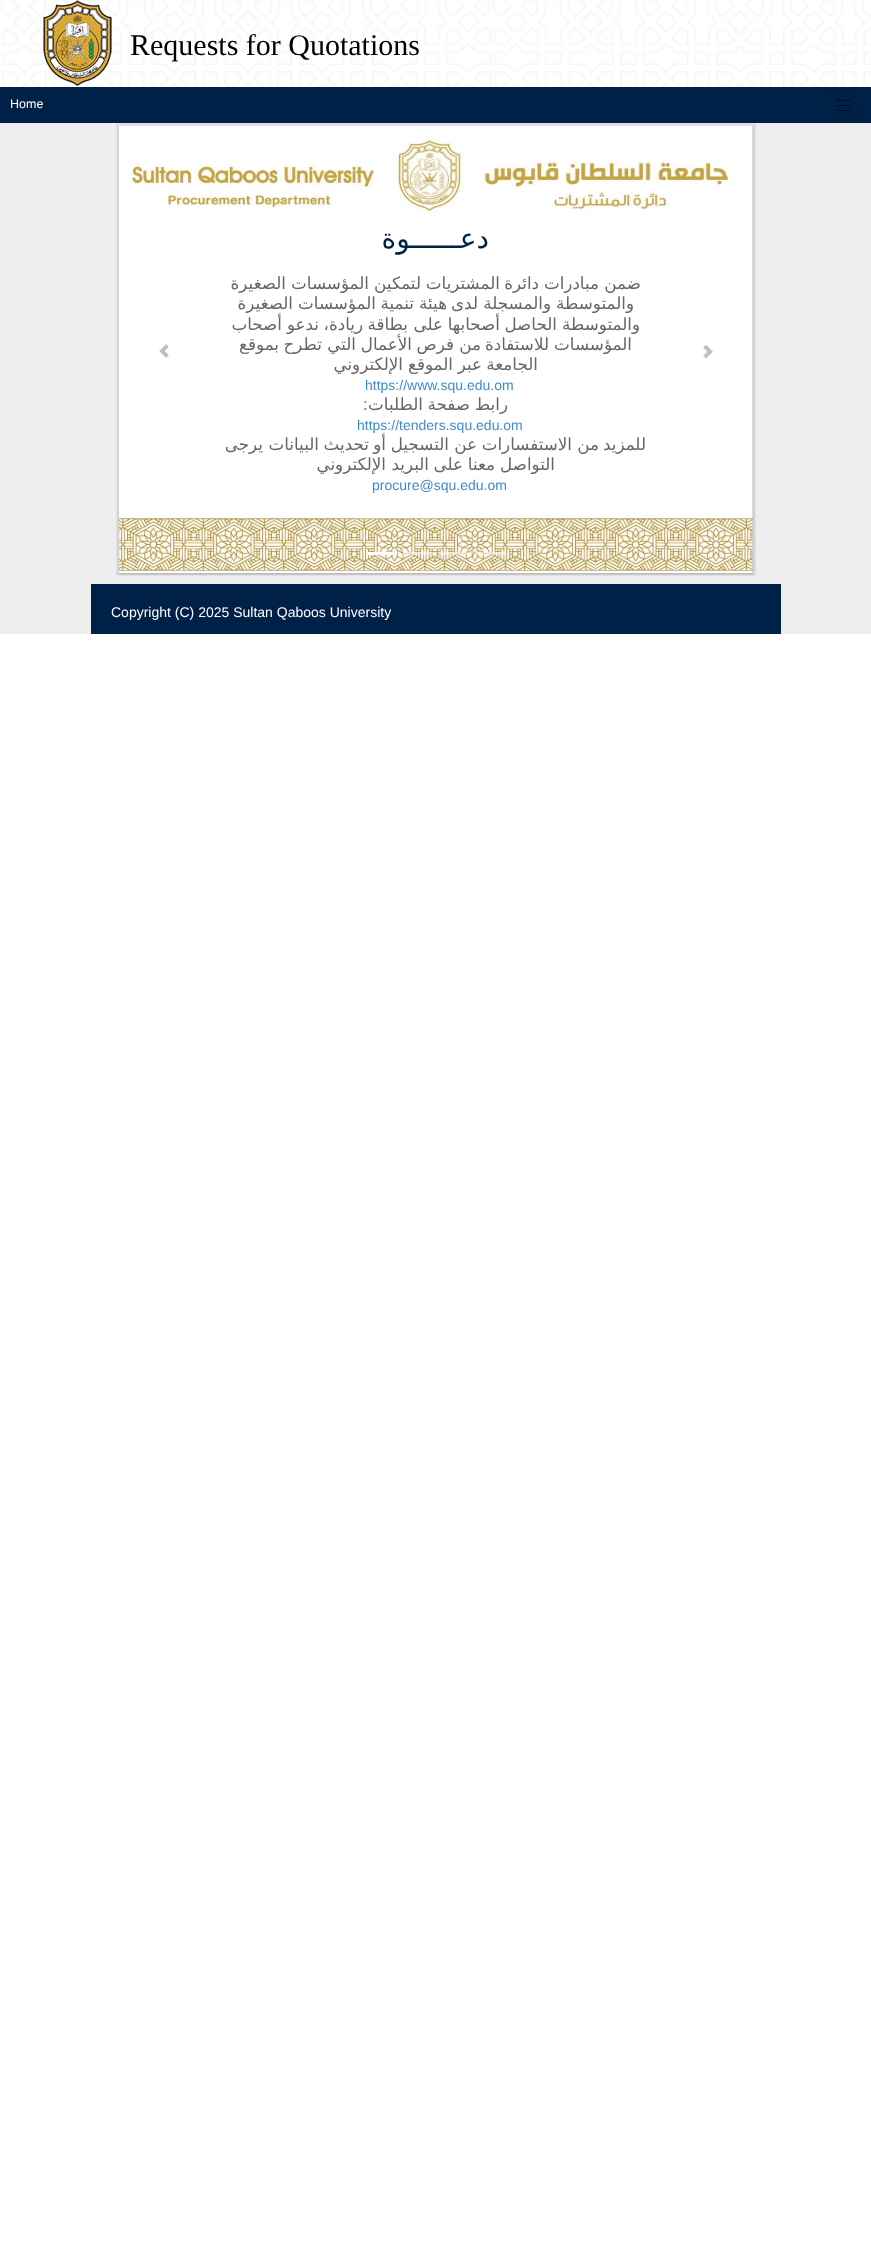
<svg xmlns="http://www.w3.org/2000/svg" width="871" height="2245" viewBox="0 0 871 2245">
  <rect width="100%" height="100%" fill="#ffffff"/>
  <rect x="0" y="123" width="871" height="511" fill="#efeeef"/>
  <image x="0" y="0" width="871" height="87" href="img1.png"/>
  <text x="130" y="55" font-family="Liberation Serif" font-size="30" fill="#000000">Requests for Quotations</text>
  <image x="43" y="0" width="69" height="86" href="img2.png"/>
  <rect x="0" y="87" width="871" height="36" fill="#002147"/>
  <rect x="825.5" y="92.5" width="35" height="25" rx="2" fill="none" stroke="#001e40"/>
  <image x="836" y="99" width="15" height="12" href="img3.png"/>
  <text x="10" y="108" font-family="Liberation Sans" font-size="12.5" fill="#ffffff">Home</text>
  <rect x="116.5" y="123.5" width="639" height="452" fill="none" stroke="#dee2e6"/>
  <image x="117" y="124" width="638" height="451" href="img5.png"/>
  <image x="703" y="345" width="10" height="14" href="img4.png"/>
  <text x="489" y="248" font-family="DejaVu Sans" font-size="28" direction="rtl" fill="#002147">دعــــــوة</text>
  <text x="641" y="289" font-family="DejaVu Sans" font-size="16.75" direction="rtl" fill="#666666">ضمن</text>
  <text x="599" y="289" font-family="DejaVu Sans" font-size="16.75" direction="rtl" fill="#666666">مبادرات</text>
  <text x="539" y="289" font-family="DejaVu Sans" font-size="16.75" direction="rtl" fill="#666666">دائرة</text>
  <text x="500" y="289" font-family="DejaVu Sans" font-size="16.75" direction="rtl" fill="#666666">المشتريات</text>
  <text x="421" y="289" font-family="DejaVu Sans" font-size="16.75" direction="rtl" fill="#666666">لتمكين</text>
  <text x="369" y="289" font-family="DejaVu Sans" font-size="16.75" direction="rtl" fill="#666666">المؤسسات</text>
  <text x="286" y="289" font-family="DejaVu Sans" font-size="16.75" direction="rtl" fill="#666666">الصغيرة</text>
  <text x="634" y="309" font-family="DejaVu Sans" font-size="16.75" direction="rtl" fill="#666666">والمتوسطة</text>
  <text x="551" y="309" font-family="DejaVu Sans" font-size="16.75" direction="rtl" fill="#666666">والمسجلة</text>
  <text x="478" y="309" font-family="DejaVu Sans" font-size="16.75" direction="rtl" fill="#666666">لدى</text>
  <text x="447" y="309" font-family="DejaVu Sans" font-size="16.75" direction="rtl" fill="#666666">هيئة</text>
  <text x="414" y="309" font-family="DejaVu Sans" font-size="16.75" direction="rtl" fill="#666666">تنمية</text>
  <text x="376" y="309" font-family="DejaVu Sans" font-size="16.75" direction="rtl" fill="#666666">المؤسسات</text>
  <text x="293" y="309" font-family="DejaVu Sans" font-size="16.75" direction="rtl" fill="#666666">الصغيرة</text>
  <text x="640" y="330" font-family="DejaVu Sans" font-size="16.75" direction="rtl" fill="#666666">والمتوسطة</text>
  <text x="557" y="330" font-family="DejaVu Sans" font-size="16.75" direction="rtl" fill="#666666">الحاصل</text>
  <text x="500" y="330" font-family="DejaVu Sans" font-size="16.75" direction="rtl" fill="#666666">أصحابها</text>
  <text x="443" y="330" font-family="DejaVu Sans" font-size="16.75" direction="rtl" fill="#666666">على</text>
  <text x="408" y="330" font-family="DejaVu Sans" font-size="16.75" direction="rtl" fill="#666666">بطاقة</text>
  <text x="363" y="330" font-family="DejaVu Sans" font-size="16.75" direction="rtl" fill="#666666">ريادة،</text>
  <text x="319" y="330" font-family="DejaVu Sans" font-size="16.75" direction="rtl" fill="#666666">ندعو</text>
  <text x="282" y="330" font-family="DejaVu Sans" font-size="16.75" direction="rtl" fill="#666666">أصحاب</text>
  <text x="632" y="350" font-family="DejaVu Sans" font-size="16.75" direction="rtl" fill="#666666">المؤسسات</text>
  <text x="549" y="350" font-family="DejaVu Sans" font-size="16.75" direction="rtl" fill="#666666">للاستفادة</text>
  <text x="481" y="350" font-family="DejaVu Sans" font-size="16.75" direction="rtl" fill="#666666">من</text>
  <text x="454" y="350" font-family="DejaVu Sans" font-size="16.75" direction="rtl" fill="#666666">فرص</text>
  <text x="412" y="350" font-family="DejaVu Sans" font-size="16.75" direction="rtl" fill="#666666">الأعمال</text>
  <text x="356" y="350" font-family="DejaVu Sans" font-size="16.75" direction="rtl" fill="#666666">التي</text>
  <text x="322" y="350" font-family="DejaVu Sans" font-size="16.75" direction="rtl" fill="#666666">تطرح</text>
  <text x="279" y="350" font-family="DejaVu Sans" font-size="16.75" direction="rtl" fill="#666666">بموقع</text>
  <text x="538" y="370" font-family="DejaVu Sans" font-size="16.75" direction="rtl" fill="#666666">الجامعة</text>
  <text x="482" y="370" font-family="DejaVu Sans" font-size="16.75" direction="rtl" fill="#666666">عبر</text>
  <text x="453" y="370" font-family="DejaVu Sans" font-size="16.75" direction="rtl" fill="#666666">الموقع</text>
  <text x="403" y="370" font-family="DejaVu Sans" font-size="16.75" direction="rtl" fill="#666666">الإلكتروني</text>
  <text x="365" y="390" font-family="Liberation Sans" font-size="14" fill="#428bca">https://www.squ.edu.om</text>
  <text x="508" y="410" font-family="DejaVu Sans" font-size="16.75" direction="rtl" fill="#666666">رابط</text>
  <text x="470" y="410" font-family="DejaVu Sans" font-size="16.75" direction="rtl" fill="#666666">صفحة</text>
  <text x="423" y="410" font-family="DejaVu Sans" font-size="16.75" direction="rtl" fill="#666666">الطلبات</text>
  <text x="363" y="410" font-family="Liberation Sans" font-size="16.75" fill="#666666">:</text>
  <text x="357" y="430" font-family="Liberation Sans" font-size="14" fill="#428bca">https://tenders.squ.edu.om</text>
  <text x="646" y="450" font-family="DejaVu Sans" font-size="16.75" direction="rtl" fill="#666666">للمزيد</text>
  <text x="599" y="450" font-family="DejaVu Sans" font-size="16.75" direction="rtl" fill="#666666">من</text>
  <text x="572" y="450" font-family="DejaVu Sans" font-size="16.75" direction="rtl" fill="#666666">الاستفسارات</text>
  <text x="477" y="450" font-family="DejaVu Sans" font-size="16.75" direction="rtl" fill="#666666">عن</text>
  <text x="449" y="450" font-family="DejaVu Sans" font-size="16.75" direction="rtl" fill="#666666">التسجيل</text>
  <text x="386" y="450" font-family="DejaVu Sans" font-size="16.75" direction="rtl" fill="#666666">أو</text>
  <text x="369" y="450" font-family="DejaVu Sans" font-size="16.75" direction="rtl" fill="#666666">تحديث</text>
  <text x="319" y="450" font-family="DejaVu Sans" font-size="16.75" direction="rtl" fill="#666666">البيانات</text>
  <text x="263" y="450" font-family="DejaVu Sans" font-size="16.75" direction="rtl" fill="#666666">يرجى</text>
  <text x="555" y="470" font-family="DejaVu Sans" font-size="16.75" direction="rtl" fill="#666666">التواصل</text>
  <text x="495" y="470" font-family="DejaVu Sans" font-size="16.75" direction="rtl" fill="#666666">معنا</text>
  <text x="463" y="470" font-family="DejaVu Sans" font-size="16.75" direction="rtl" fill="#666666">على</text>
  <text x="429" y="470" font-family="DejaVu Sans" font-size="16.75" direction="rtl" fill="#666666">البريد</text>
  <text x="386" y="470" font-family="DejaVu Sans" font-size="16.75" direction="rtl" fill="#666666">الإلكتروني</text>
  <text x="372" y="490" font-family="Liberation Sans" font-size="14" fill="#428bca">procure@squ.edu.om</text>
  <image x="159" y="344" width="10" height="14" href="img6.png"/>
  <rect x="475" y="552" width="30" height="3" fill="#ffffff" fill-opacity="0.5"/>
  <rect x="439" y="552" width="30" height="3" fill="#ffffff" fill-opacity="0.5"/>
  <rect x="403" y="552" width="30" height="3" fill="#ffffff" fill-opacity="0.5"/>
  <rect x="367" y="552" width="30" height="3" fill="#ffffff"/>
  <rect x="91" y="584" width="690" height="50" fill="#002147"/>
  <text x="111" y="617" font-family="Liberation Sans" font-size="14" fill="#ffffff">Copyright (C) 2025 Sultan Qaboos University</text>
</svg>
